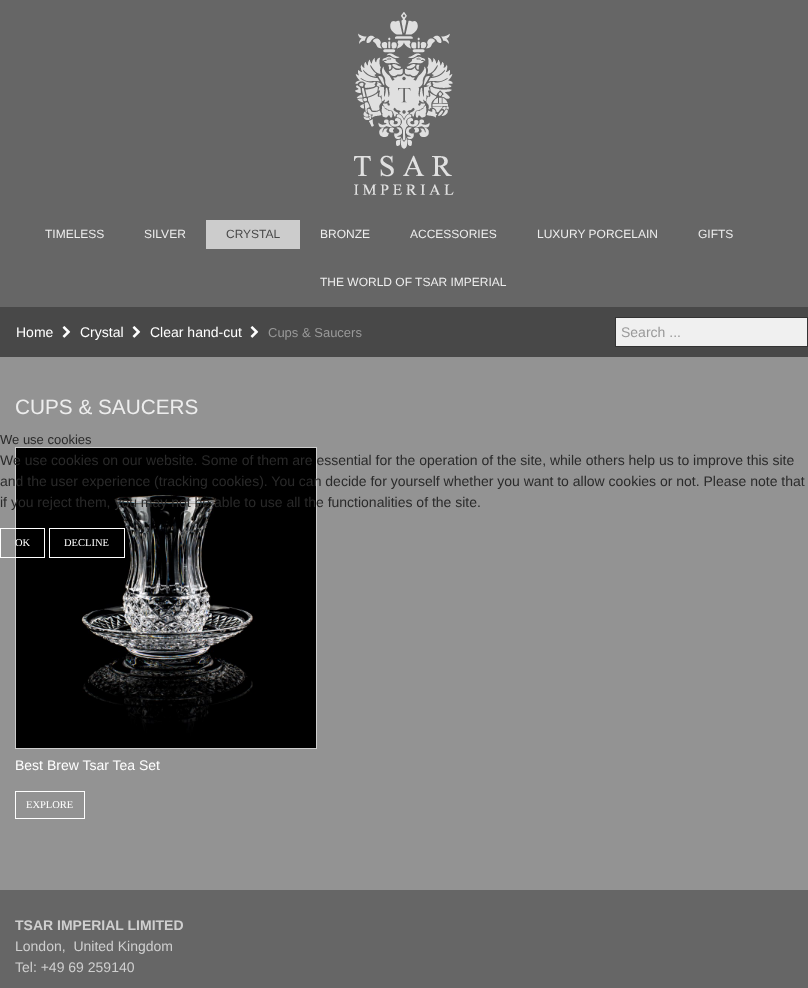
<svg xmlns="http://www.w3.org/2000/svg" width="808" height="988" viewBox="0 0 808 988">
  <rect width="100%" height="100%" fill="#939393"/>
  <rect x="0" y="0" width="808" height="307" fill="#666666"/>
  <image x="354" y="12" width="100" height="183" href="img1.png"/>
  <text x="45" y="238" font-family="Liberation Sans" font-size="12" fill="#ededed">TIMELESS</text>
  <text x="144" y="238" font-family="Liberation Sans" font-size="12" fill="#ededed">SILVER</text>
  <rect x="206" y="220" width="94" height="29" fill="#cccccc"/>
  <text x="226" y="238" font-family="Liberation Sans" font-size="12" fill="#484848">CRYSTAL</text>
  <text x="320" y="238" font-family="Liberation Sans" font-size="12" fill="#ededed">BRONZE</text>
  <text x="410" y="238" font-family="Liberation Sans" font-size="12" fill="#ededed">ACCESSORIES</text>
  <text x="537" y="238" font-family="Liberation Sans" font-size="12" fill="#ededed">LUXURY PORCELAIN</text>
  <text x="698" y="238" font-family="Liberation Sans" font-size="12" fill="#ededed">GIFTS</text>
  <text x="320" y="286" font-family="Liberation Sans" font-size="12" fill="#ededed">THE WORLD OF TSAR IMPERIAL</text>
  <rect x="0" y="307" width="808" height="50" fill="#484848"/>
  <text x="16" y="337" font-family="Liberation Sans" font-size="14" fill="#ffffff">Home</text>
  <image x="62" y="326" width="9" height="12" href="img2.png"/>
  <text x="80" y="337" font-family="Liberation Sans" font-size="14" fill="#ffffff">Crystal</text>
  <image x="132" y="326" width="9" height="12" href="img2.png"/>
  <text x="150" y="337" font-family="Liberation Sans" font-size="14" fill="#ffffff">Clear hand-cut</text>
  <image x="250" y="326" width="9" height="12" href="img2.png"/>
  <text x="268" y="337" font-family="Liberation Sans" font-size="13" fill="#999999">Cups &amp; Saucers</text>
  <rect x="615.5" y="317.5" width="192" height="29" fill="#f0f0f0" stroke="#333333"/>
  <text x="621" y="337" font-family="Liberation Sans" font-size="14" fill="#999999">Search ...</text>
  <text x="15" y="414" font-family="Liberation Sans" font-size="20.75" fill="#ededed">CUPS &amp; SAUCERS</text>
  <rect x="15.5" y="447.5" width="301" height="301" fill="none" stroke="#cccccc"/>
  <image x="16" y="448" width="300" height="300" href="img3.png"/>
  <text x="15" y="770" font-family="Liberation Sans" font-size="14" fill="#ffffff">Best Brew Tsar Tea Set</text>
  <rect x="15.5" y="791.5" width="69" height="27" fill="none" stroke="#ffffff"/>
  <text x="26" y="808" font-family="Liberation Serif" font-size="10.5" fill="#ffffff">EXPLORE</text>
  <rect x="0" y="890" width="808" height="98" fill="#666666"/>
  <text x="15" y="930" font-family="Liberation Sans" font-size="14" font-weight="bold" fill="#cfcfcf">TSAR IMPERIAL LIMITED</text>
  <text x="15" y="951" font-family="Liberation Sans" font-size="14" fill="#cfcfcf" xml:space="preserve">London,  United Kingdom</text>
  <text x="15" y="972" font-family="Liberation Sans" font-size="14" fill="#cfcfcf">Tel: +49 69 259140</text>
  <text x="0" y="444" font-family="Liberation Sans" font-size="13" fill="#2a2a2a">We use cookies</text>
  <text x="0" y="465" font-family="Liberation Sans" font-size="14" fill="#2a2a2a">We use cookies on our website. Some of them are essential for the operation of the site, while others help us to improve this site</text>
  <text x="0" y="486" font-family="Liberation Sans" font-size="14" fill="#2a2a2a">and the user experience (tracking cookies). You can decide for yourself whether you want to allow cookies or not. Please note that</text>
  <text x="0" y="507" font-family="Liberation Sans" font-size="14" fill="#2a2a2a">if you reject them, you may not be able to use all the functionalities of the site.</text>
  <rect x="0.5" y="528.5" width="44" height="29" fill="none" stroke="#ffffff"/>
  <text x="15" y="546" font-family="Liberation Serif" font-size="10.5" fill="#ffffff">OK</text>
  <rect x="49.5" y="528.5" width="75" height="29" fill="none" stroke="#ffffff"/>
  <text x="64" y="546" font-family="Liberation Serif" font-size="10.5" fill="#ffffff">DECLINE</text>
</svg>
